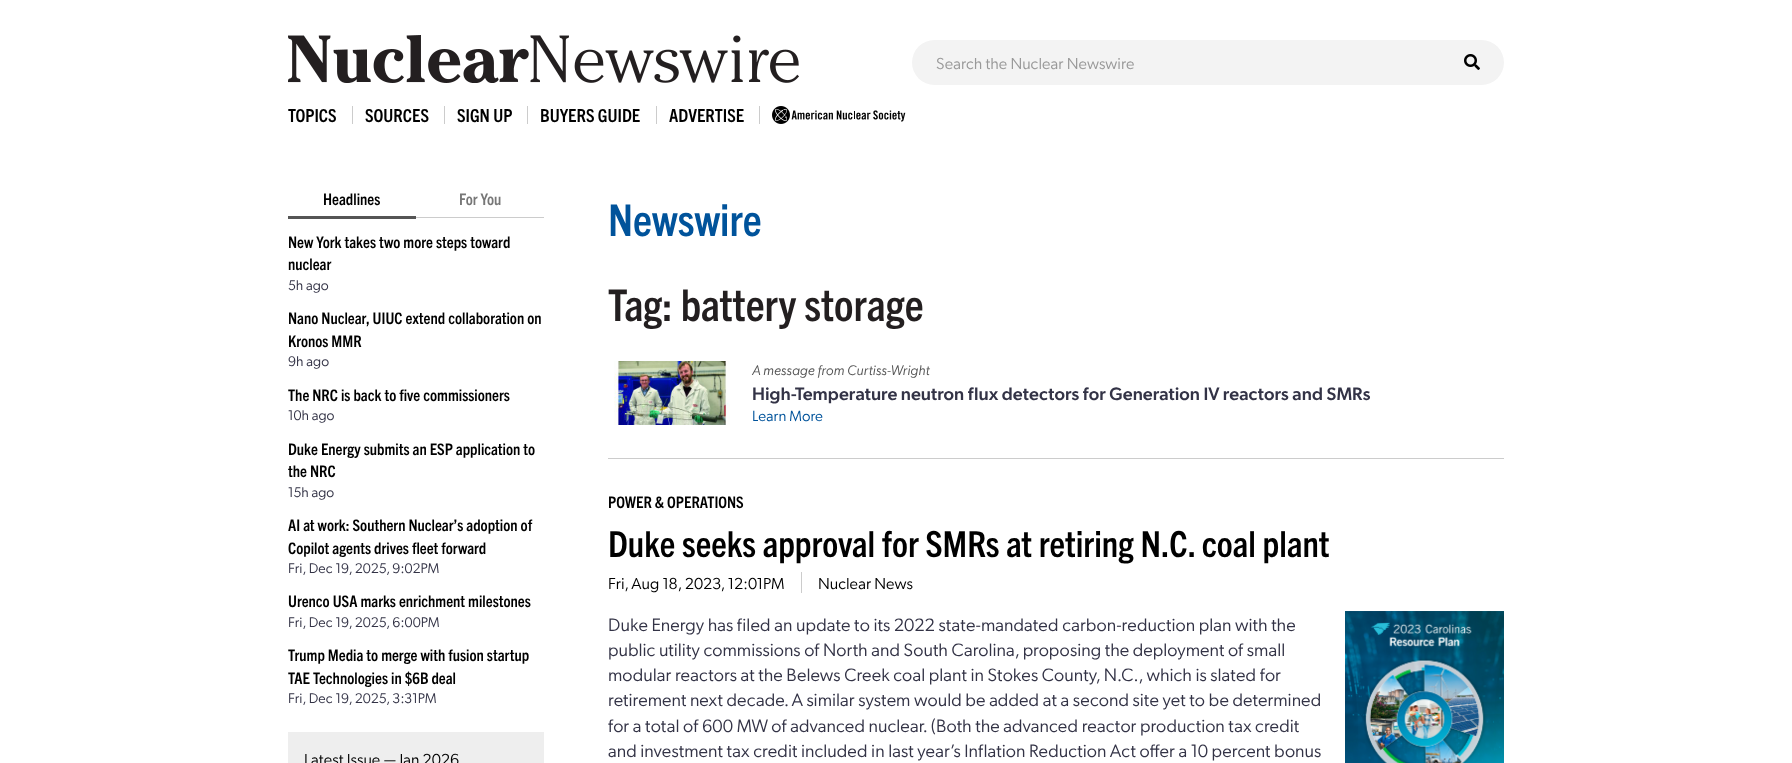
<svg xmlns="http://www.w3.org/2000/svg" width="1792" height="763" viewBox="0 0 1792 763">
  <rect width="100%" height="100%" fill="#ffffff"/>
  <image x="288" y="35" width="511" height="48" href="img1.png"/>
  <rect x="912" y="40" width="592" height="45" rx="22.5" fill="#f3f3f3"/>
  <text x="936" y="69" font-family="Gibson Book" font-size="16" fill="#999999">Search the Nuclear Newswire</text>
  <image x="1464" y="54" width="16" height="16" href="img2.png"/>
  <text x="288" y="122" font-family="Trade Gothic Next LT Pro" font-size="18" font-weight="bold" fill="#000000">TOPICS</text>
  <rect x="352" y="106" width="1" height="18" fill="#cccccc"/>
  <text x="365" y="122" font-family="Trade Gothic Next LT Pro" font-size="18" font-weight="bold" fill="#000000">SOURCES</text>
  <rect x="444" y="106" width="1" height="18" fill="#cccccc"/>
  <text x="457" y="122" font-family="Trade Gothic Next LT Pro" font-size="18" font-weight="bold" fill="#000000">SIGN UP</text>
  <rect x="527" y="106" width="1" height="18" fill="#cccccc"/>
  <text x="540" y="122" font-family="Trade Gothic Next LT Pro" font-size="18" font-weight="bold" fill="#000000">BUYERS GUIDE</text>
  <rect x="656" y="106" width="1" height="18" fill="#cccccc"/>
  <text x="669" y="122" font-family="Trade Gothic Next LT Pro" font-size="18" font-weight="bold" fill="#000000">ADVERTISE</text>
  <rect x="759" y="106" width="1" height="18" fill="#cccccc"/>
  <image x="772" y="106" width="134" height="18" href="img3.png"/>
  <text x="323" y="205" font-family="Trade Gothic Next LT Pro" font-size="16" font-weight="bold" fill="#000000">Headlines</text>
  <rect x="288" y="216" width="128" height="3" fill="#555555"/>
  <text x="459" y="205" font-family="Trade Gothic Next LT Pro" font-size="16" font-weight="bold" fill="#777777">For You</text>
  <rect x="416" y="217" width="128" height="1" fill="#cccccc"/>
  <text x="288" y="248" font-family="Trade Gothic Next LT Pro" font-size="16" font-weight="bold" fill="#000000">New York takes two more steps toward</text>
  <text x="288" y="270" font-family="Trade Gothic Next LT Pro" font-size="16" font-weight="bold" fill="#000000">nuclear</text>
  <text x="288" y="290" font-family="Gibson Book" font-size="14" fill="#333346">5h ago</text>
  <text x="288" y="324" font-family="Trade Gothic Next LT Pro" font-size="16" font-weight="bold" fill="#000000">Nano Nuclear, UIUC extend collaboration on</text>
  <text x="288" y="347" font-family="Trade Gothic Next LT Pro" font-size="16" font-weight="bold" fill="#000000">Kronos MMR</text>
  <text x="288" y="366" font-family="Gibson Book" font-size="14" fill="#333346">9h ago</text>
  <text x="288" y="401" font-family="Trade Gothic Next LT Pro" font-size="16" font-weight="bold" fill="#000000">The NRC is back to five commissioners</text>
  <text x="288" y="420" font-family="Gibson Book" font-size="14" fill="#333346">10h ago</text>
  <text x="288" y="455" font-family="Trade Gothic Next LT Pro" font-size="16" font-weight="bold" fill="#000000">Duke Energy submits an ESP application to</text>
  <text x="288" y="477" font-family="Trade Gothic Next LT Pro" font-size="16" font-weight="bold" fill="#000000">the NRC</text>
  <text x="288" y="497" font-family="Gibson Book" font-size="14" fill="#333346">15h ago</text>
  <text x="288" y="531" font-family="Trade Gothic Next LT Pro" font-size="16" font-weight="bold" fill="#000000">AI at work: Southern Nuclear’s adoption of</text>
  <text x="288" y="554" font-family="Trade Gothic Next LT Pro" font-size="16" font-weight="bold" fill="#000000">Copilot agents drives fleet forward</text>
  <text x="288" y="573" font-family="Gibson Book" font-size="14" fill="#333346">Fri, Dec 19, 2025, 9:02PM</text>
  <text x="288" y="607" font-family="Trade Gothic Next LT Pro" font-size="16" font-weight="bold" fill="#000000">Urenco USA marks enrichment milestones</text>
  <text x="288" y="627" font-family="Gibson Book" font-size="14" fill="#333346">Fri, Dec 19, 2025, 6:00PM</text>
  <text x="288" y="661" font-family="Trade Gothic Next LT Pro" font-size="16" font-weight="bold" fill="#000000">Trump Media to merge with fusion startup</text>
  <text x="288" y="684" font-family="Trade Gothic Next LT Pro" font-size="16" font-weight="bold" fill="#000000">TAE Technologies in $6B deal</text>
  <text x="288" y="703" font-family="Gibson Book" font-size="14" fill="#333346">Fri, Dec 19, 2025, 3:31PM</text>
  <rect x="288" y="732" width="256" height="31" fill="#eeeeee"/>
  <text x="304" y="765" font-family="Gibson Book" font-size="16" fill="#000000">Latest Issue — Jan 2026</text>
  <text x="608" y="236" font-family="Trade Gothic Next LT Pro" font-size="44" font-weight="bold" fill="#00539b">Newswire</text>
  <text x="608" y="321" font-family="Trade Gothic Next LT Pro" font-size="44" font-weight="bold" fill="#231f20">Tag: battery storage</text>
  <rect x="608" y="458" width="896" height="1" fill="#cccccc"/>
  <image x="614" y="361" width="116" height="64" href="img4.png"/>
  <text x="752" y="375" font-family="Gibson Book" font-size="14" font-style="italic" fill="#555555">A message from Curtiss-Wright</text>
  <text x="752" y="400" font-family="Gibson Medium" font-size="18" font-weight="500" fill="#333346">High-Temperature neutron flux detectors for Generation IV reactors and SMRs</text>
  <text x="752" y="421" font-family="Gibson Book" font-size="15" fill="#00539b">Learn More</text>
  <text x="608" y="508" font-family="Trade Gothic Next LT Pro" font-size="16" font-weight="bold" fill="#000000">POWER &amp; OPERATIONS</text>
  <text x="608" y="557" font-family="Trade Gothic Next LT Pro" font-size="36" font-weight="bold" fill="#000000">Duke seeks approval for SMRs at retiring N.C. coal plant</text>
  <text x="608" y="589" font-family="Gibson Book" font-size="16" fill="#000000">Fri, Aug 18, 2023, 12:01PM</text>
  <text x="818" y="589" font-family="Gibson Book" font-size="16" fill="#000000">Nuclear News</text>
  <rect x="801" y="572" width="1" height="21" fill="#cccccc"/>
  <text x="608" y="631" font-family="Gibson Book" font-size="18" fill="#333346">Duke Energy has filed an update to its 2022 state-mandated carbon-reduction plan with the</text>
  <image x="1345" y="611" width="159" height="152" href="img5.png"/>
  <text x="608" y="656" font-family="Gibson Book" font-size="18" fill="#333346">public utility commissions of North and South Carolina, proposing the deployment of small</text>
  <text x="608" y="681" font-family="Gibson Book" font-size="18" fill="#333346">modular reactors at the Belews Creek coal plant in Stokes County, N.C., which is slated for</text>
  <text x="608" y="706" font-family="Gibson Book" font-size="18" fill="#333346">retirement next decade. A similar system would be added at a second site yet to be determined</text>
  <text x="608" y="732" font-family="Gibson Book" font-size="18" fill="#333346">for a total of 600 MW of advanced nuclear. (Both the advanced reactor production tax credit</text>
  <text x="608" y="757" font-family="Gibson Book" font-size="18" fill="#333346">and investment tax credit included in last year’s Inflation Reduction Act offer a 10 percent bonus</text>
</svg>
